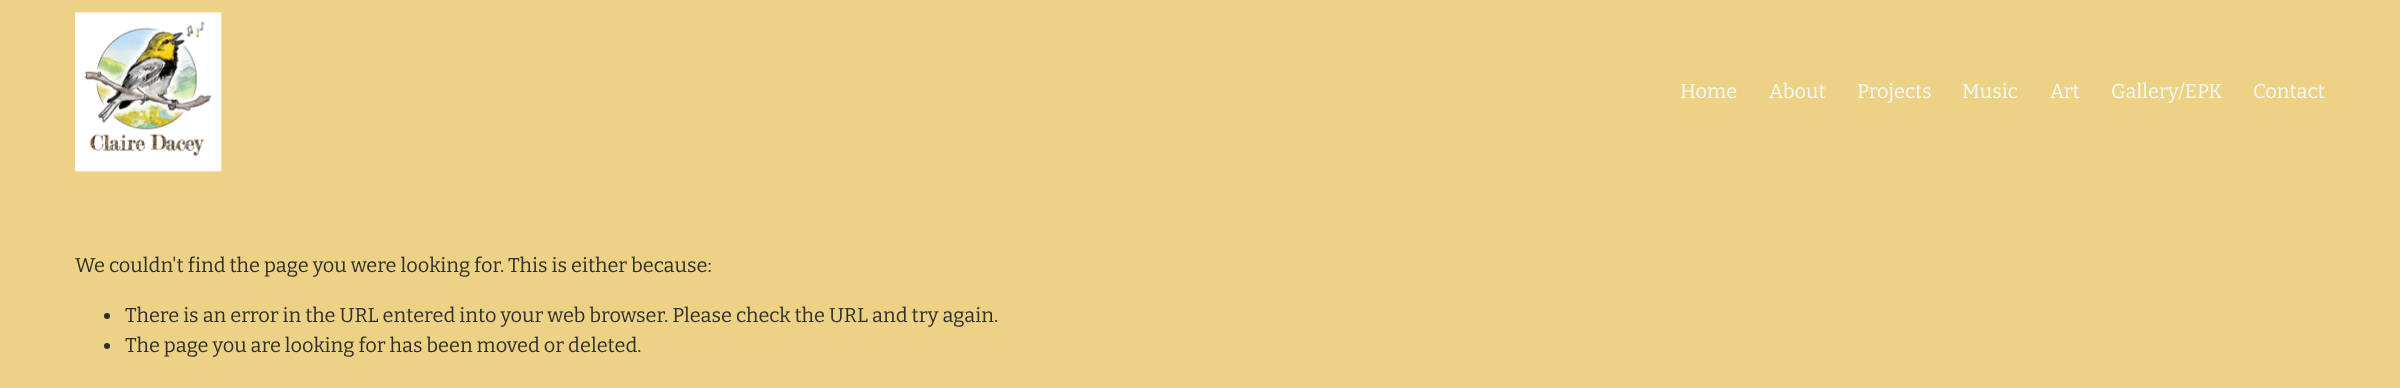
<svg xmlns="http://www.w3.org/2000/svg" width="2400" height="388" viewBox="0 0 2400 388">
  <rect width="100%" height="100%" fill="#edd286"/>
  <image x="75" y="12" width="147" height="160" href="img1.png"/>
  <text x="1680" y="98" font-family="Bitter" font-size="20" fill="#f1f9f9">Home</text>
  <text x="1769" y="98" font-family="Bitter" font-size="20" fill="#f1f9f9">About</text>
  <text x="1857" y="98" font-family="Bitter" font-size="20" fill="#f1f9f9">Projects</text>
  <text x="1962" y="98" font-family="Bitter" font-size="20" fill="#f1f9f9">Music</text>
  <text x="2050" y="98" font-family="Bitter" font-size="20" fill="#f1f9f9">Art</text>
  <text x="2111" y="98" font-family="Bitter" font-size="20" fill="#f1f9f9">Gallery/EPK</text>
  <text x="2253" y="98" font-family="Bitter" font-size="20" fill="#f1f9f9">Contact</text>
  <text x="75" y="272" font-family="Bitter" font-size="20" fill="#2d2d2a">We couldn't find the page you were looking for. This is either because:</text>
  <circle cx="107" cy="316" r="3" fill="#2d2d2a"/>
  <text x="125" y="322" font-family="Bitter" font-size="20" fill="#2d2d2a">There is an error in the URL entered into your web browser. Please check the URL and try again.</text>
  <circle cx="107" cy="346" r="3" fill="#2d2d2a"/>
  <text x="125" y="352" font-family="Bitter" font-size="20" fill="#2d2d2a">The page you are looking for has been moved or deleted.</text>
</svg>
